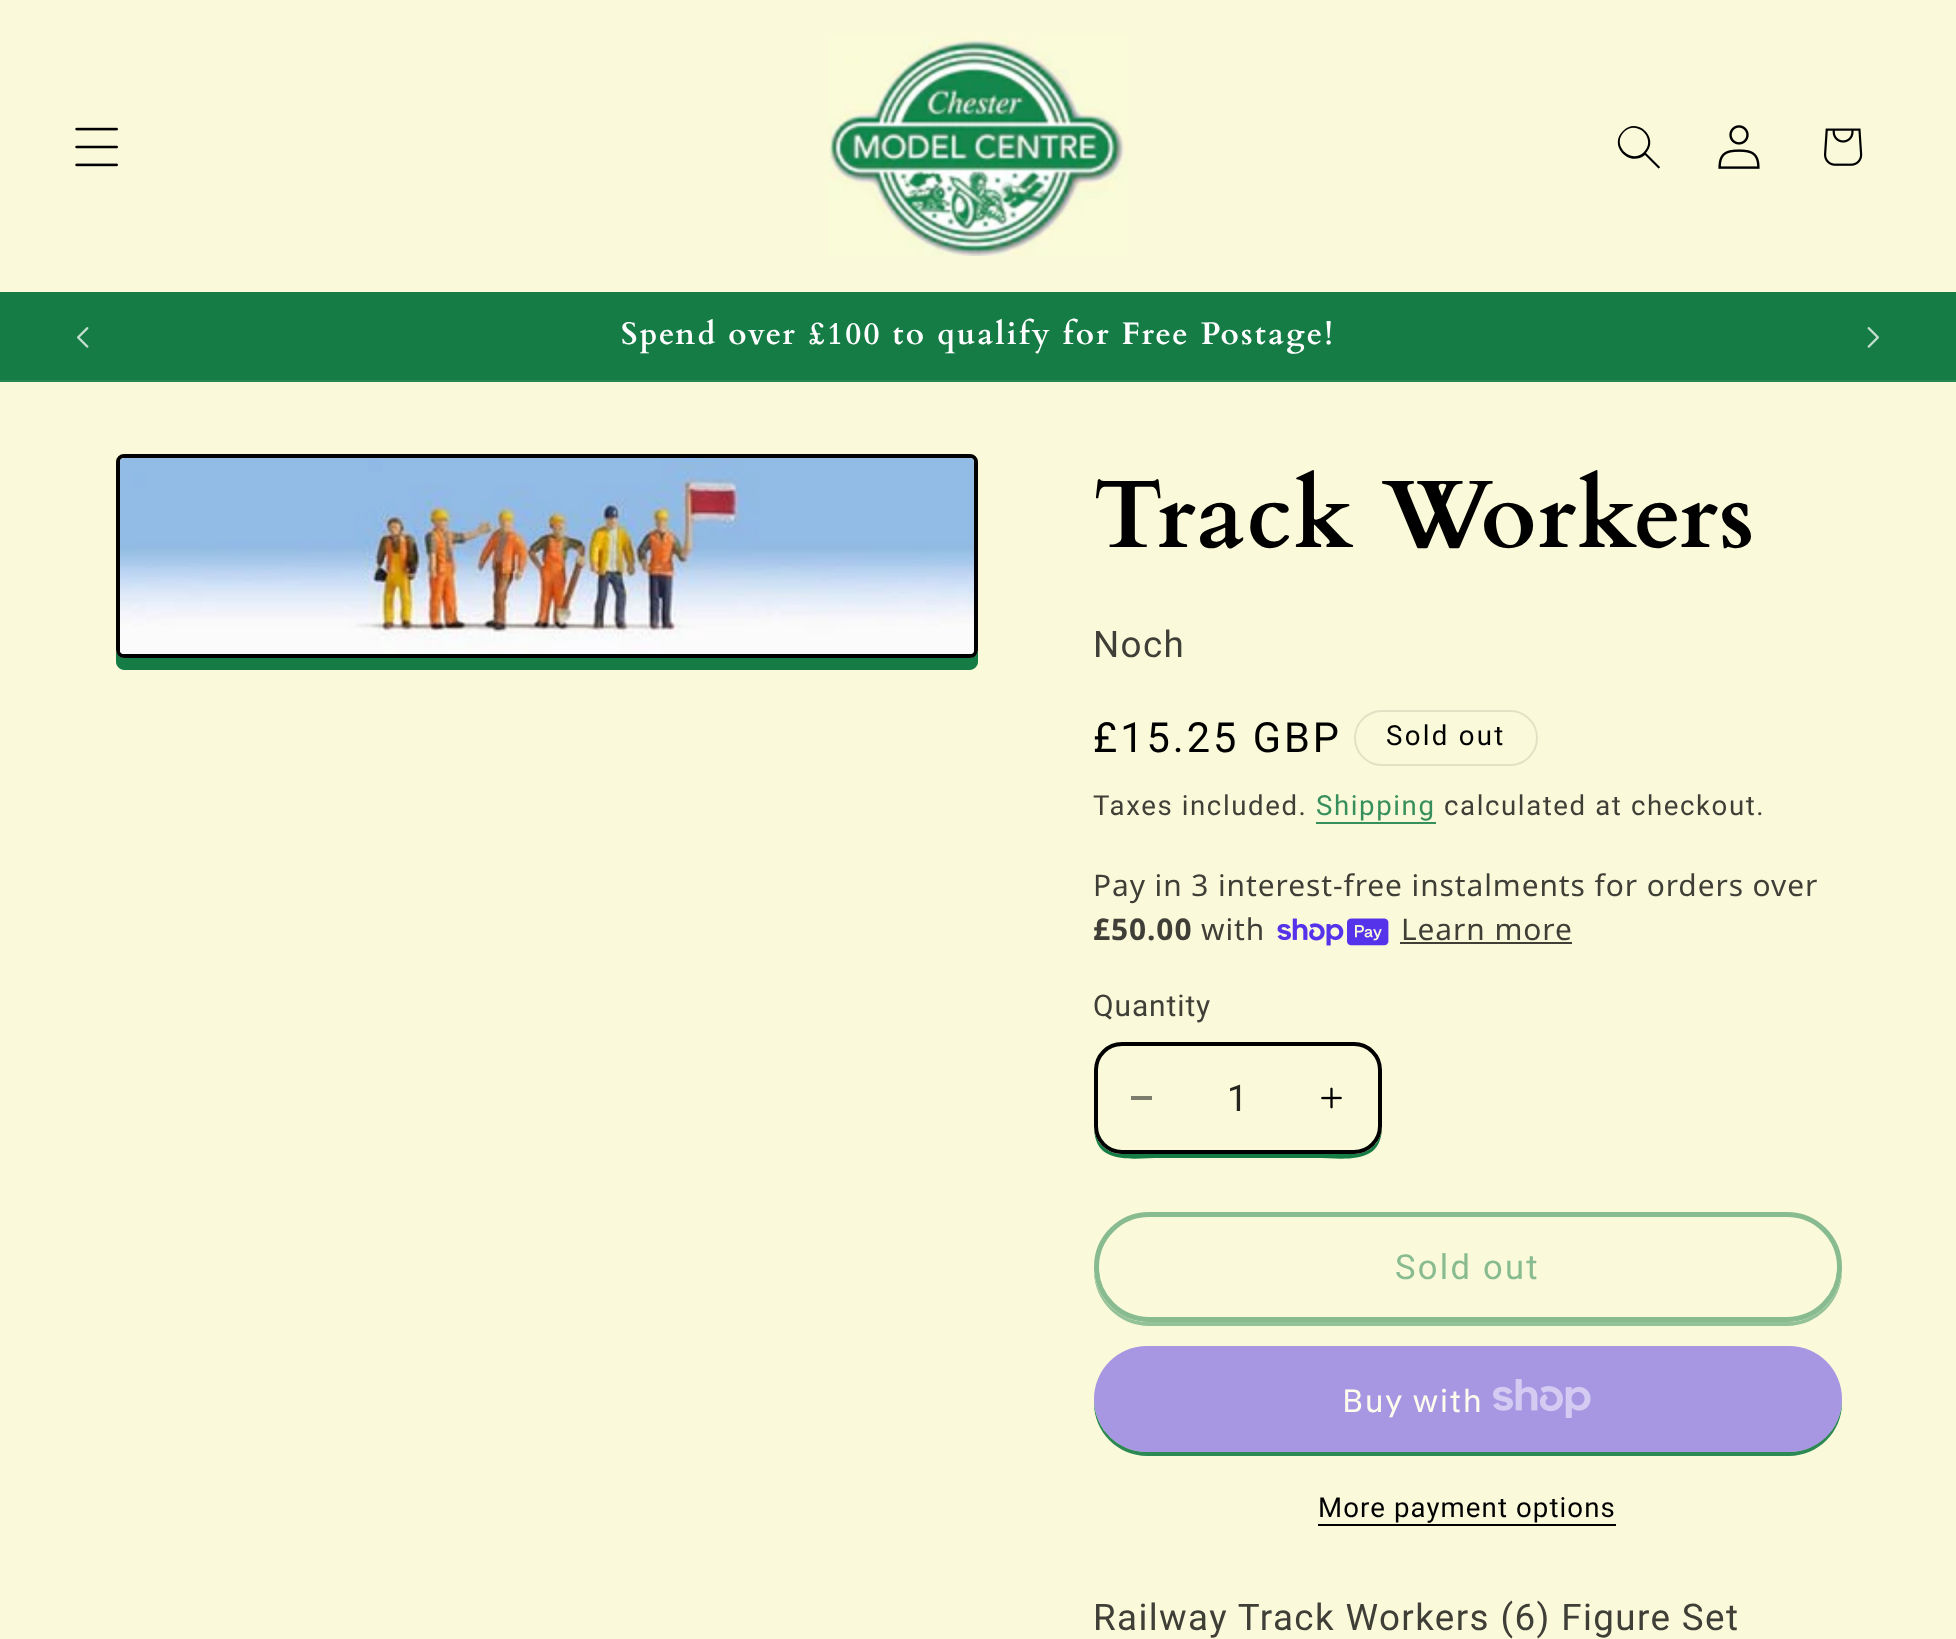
<svg xmlns="http://www.w3.org/2000/svg" width="1956" height="1639" viewBox="0 0 1956 1639">
  <rect width="100%" height="100%" fill="#fafadb"/>
  <image x="75" y="127" width="43" height="40" href="img1.png"/>
  <image x="828" y="38" width="300" height="218" href="img2.png"/>
  <path d="M1644 152C1631 165 1611 145 1624 132C1637 119 1657 139 1644 152M1645 155C1629 168 1608 145 1623 131C1637 116 1660 138 1646 153L1660 167C1660 168 1658 169 1658 168Z" fill="#000000" fill-rule="evenodd"/>
  <image x="1718" y="125" width="42" height="44" href="img3.png"/>
  <image x="1824" y="128" width="39" height="38" href="img4.png"/>
  <rect x="0" y="292" width="1956" height="88" fill="#157c45"/>
  <rect x="0" y="380" width="1956" height="2" fill="#288654"/>
  <image x="77" y="327" width="12" height="21" href="img5.png"/>
  <text x="621" y="344" font-family="Cardo" font-size="31.2" font-weight="bold" letter-spacing="2.3" fill="#ffffff">Spend over £100 to qualify for Free Postage!</text>
  <image x="1867" y="327" width="12" height="21" href="img6.png"/>
  <path d="M116 650V662C116 666 120 670 124 670H970C974 670 978 666 978 662V650C978 654 974 658 970 658H124C120 658 116 654 116 650Z" fill="#157c45"/>
  <rect x="118" y="456" width="858" height="200" rx="6" fill="none" stroke="#000000" stroke-width="4"/>
  <image x="120" y="458" width="854" height="196" href="img7.png"/>
  <text x="1093" y="547" font-family="Cardo" font-size="96" font-weight="bold" letter-spacing="1.5" fill="#000000">Track Workers</text>
  <text x="1093" y="657" font-family="Roboto" font-size="36.75" letter-spacing="1.4" fill="#3f3f37">Noch</text>
  <text x="1093" y="752" font-family="Roboto" font-size="41.5" letter-spacing="3" fill="#000000">£15.25 GBP</text>
  <rect x="1355" y="711" width="182" height="54" rx="27" fill="none" stroke="#e1e1c5" stroke-width="2"/>
  <text x="1386" y="745" font-family="Roboto" font-size="27.6" letter-spacing="2.3" fill="#000000">Sold out</text>
  <text x="1093" y="815" font-family="Roboto" font-size="27.6" letter-spacing="1.6" fill="#3f3f37">Taxes included.</text>
  <text x="1316" y="815" font-family="Roboto" font-size="27.6" letter-spacing="1.6" fill="#378f5c">Shipping</text>
  <rect x="1316" y="822" width="120" height="2" fill="#378f5c"/>
  <text x="1444" y="815" font-family="Roboto" font-size="27.6" letter-spacing="1.6" fill="#3f3f37">calculated at checkout.</text>
  <text x="1093" y="896" font-family="Noto Sans" font-size="29.9" letter-spacing="0.92" fill="#3f3f37">Pay in 3 interest-free instalments for orders over</text>
  <text x="1093" y="940" font-family="Noto Sans" font-size="29.9" font-weight="bold" letter-spacing="0.92" fill="#3f3f37">£50.00</text>
  <text x="1201" y="940" font-family="Noto Sans" font-size="29.9" letter-spacing="0.92" fill="#3f3f37">with</text>
  <image x="1277" y="918" width="112" height="28" href="img8.png"/>
  <text x="1401" y="940" font-family="Noto Sans" font-size="29.9" letter-spacing="0.92" fill="#3f3f37">Learn more</text>
  <rect x="1400" y="942" width="172" height="2" fill="#3f3f37"/>
  <text x="1093" y="1016" font-family="Roboto" font-size="29.9" letter-spacing="0.92" fill="#3f3f37">Quantity</text>
  <path d="M1094 1126C1094 1166 1131 1158 1161 1158H1315C1345 1158 1382 1166 1382 1126C1382 1141 1369 1154 1354 1154H1122C1107 1154 1094 1141 1094 1126Z" fill="#157c45"/>
  <rect x="1094" y="1042" width="288" height="112" rx="28" fill="#fafadb"/>
  <rect x="1131" y="1096" width="21" height="4" fill="#7d7d6e"/>
  <image x="1321" y="1087" width="21" height="22" href="img9.png"/>
  <rect x="1096" y="1044" width="284" height="108" rx="26" fill="none" stroke="#000000" stroke-width="4"/>
  <text x="1227" y="1111" font-family="Roboto" font-size="36.75" fill="#262621">1</text>
  <path d="M1094 1269V1271C1094 1301 1119 1326 1149 1326H1787C1817 1326 1842 1301 1842 1271V1269C1841 1298 1817 1322 1787 1322H1149C1119 1322 1095 1298 1094 1269Z" fill="#93c198"/>
  <rect x="1096" y="1214" width="744" height="106" rx="53" fill="none" stroke="#fafadb" stroke-width="4"/>
  <rect x="1096.5" y="1214.5" width="743" height="105" rx="52.5" fill="none" stroke="#88bb90" stroke-width="5"/>
  <text x="1395" y="1279" font-family="Roboto" font-size="34.5" letter-spacing="2.3" fill="#88bb90">Sold out</text>
  <path d="M1094 1401C1093 1431 1117 1456 1147 1456H1789C1819 1456 1843 1431 1842 1401C1841 1429 1818 1452 1789 1452H1147C1118 1452 1095 1429 1094 1401Z" fill="#2c8954"/>
  <rect x="1094" y="1346" width="748" height="106" rx="53" fill="#5433eb" fill-opacity="0.5"/>
  <text x="1342" y="1412" font-family="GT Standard" font-size="32" letter-spacing="1.4" fill="#fdfded">Buy with</text>
  <image x="1493" y="1379" width="98" height="39" href="img10.png"/>
  <text x="1318" y="1517" font-family="Roboto" font-size="27.6" letter-spacing="1.1" fill="#000000">More payment options</text>
  <rect x="1318" y="1524" width="298" height="2" fill="#000000"/>
  <text x="1093" y="1630" font-family="Roboto" font-size="36.75" letter-spacing="1.4" fill="#3f3f37">Railway Track Workers (6) Figure Set</text>
</svg>
